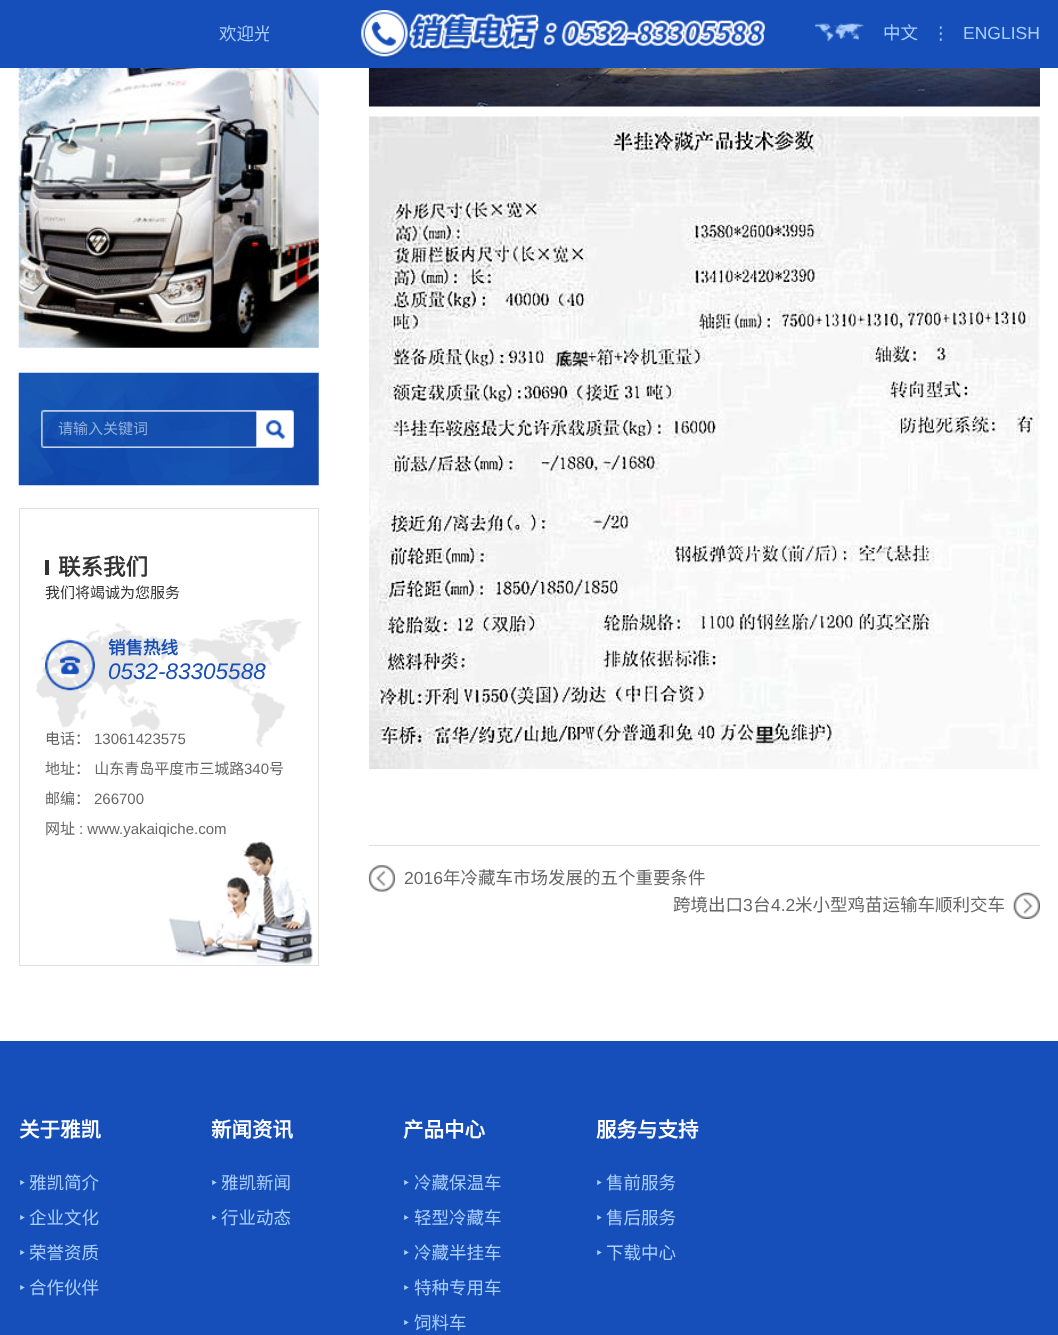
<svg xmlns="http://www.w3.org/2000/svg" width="1058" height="1335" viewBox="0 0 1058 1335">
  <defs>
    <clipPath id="clip1"><rect x="19" y="1" width="250" height="65"/></clipPath>
  </defs>
  <rect width="100%" height="100%" fill="#ffffff"/>
  <rect x="0" y="0" width="1058" height="68" fill="#164fb9"/>
  <g clip-path="url(#clip1)">
    <text x="219" y="40" font-family="Noto Sans CJK SC" font-size="17.5" fill="#aaceff">欢迎光</text>
  </g>
  <image x="361" y="10" width="404" height="48" href="img1.png"/>
  <image x="815" y="23" width="49" height="19" href="img2.png"/>
  <text x="883" y="39" font-family="Noto Sans CJK SC" font-size="17.5" fill="#aaceff">中文</text>
  <text x="932" y="39" font-family="DejaVu Sans" font-size="17.5" fill="#aaceff">⋮</text>
  <text x="963" y="39" font-family="Liberation Sans" font-size="17.5" fill="#aaceff">ENGLISH</text>
  <image x="18" y="68" width="301" height="280" href="img3.png"/>
  <image x="18" y="372" width="301" height="114" href="img4.png"/>
  <text x="58" y="434" font-family="Noto Sans CJK SC" font-size="15" fill="#93afdb">请输入关键词</text>
  <image x="36" y="618" width="277" height="347" href="img5.png"/>
  <rect x="19.5" y="508.5" width="299" height="457" fill="none" stroke="#dfdfdf"/>
  <rect x="45" y="560" width="4" height="15" fill="#333333"/>
  <text x="58" y="575" font-family="Noto Sans CJK SC" font-size="22.5" font-weight="bold" fill="#333333">联系我们</text>
  <text x="45" y="598" font-family="Noto Sans CJK SC" font-size="15" fill="#333333">我们将竭诚为您服务</text>
  <image x="45" y="640" width="50" height="51" href="img6.png"/>
  <text x="108" y="654" font-family="Noto Sans CJK SC" font-size="17.5" font-weight="bold" fill="#164fb9">销售热线</text>
  <text x="108" y="679" font-family="Liberation Sans" font-size="22.5" font-style="italic" fill="#164fb9">0532-83305588</text>
  <text x="45" y="744" font-family="Noto Sans CJK SC" font-size="15" fill="#666666">电话：</text>
  <text x="94" y="744" font-family="Liberation Sans" font-size="15" fill="#666666">13061423575</text>
  <text x="45" y="774" word-spacing="1" font-family="Noto Sans CJK SC" font-size="15" fill="#666666">地址： 山东青岛平度市三城路</text>
  <text x="244" y="774" font-family="Liberation Sans" font-size="15" fill="#666666">340</text>
  <text x="269" y="774" font-family="Noto Sans CJK SC" font-size="15" fill="#666666">号</text>
  <text x="45" y="804" font-family="Noto Sans CJK SC" font-size="15" fill="#666666">邮编：</text>
  <text x="94" y="804" font-family="Liberation Sans" font-size="15" fill="#666666">266700</text>
  <text x="45" y="834" font-family="Noto Sans CJK SC" font-size="15" fill="#666666">网址</text>
  <text x="79" y="834" font-family="Liberation Sans" font-size="15" fill="#666666">: www.yakaiqiche.com</text>
  <image x="368" y="68" width="672" height="39" href="img7.png"/>
  <image x="369" y="116" width="671" height="653" href="img8.png"/>
  <rect x="369" y="845" width="671" height="1" fill="#dfdfdf"/>
  <image x="368" y="865" width="27" height="27" href="img9.png"/>
  <text x="404" y="884" font-family="Liberation Sans" font-size="17.5" fill="#666666">2016</text>
  <text x="443" y="884" font-family="Noto Sans CJK SC" font-size="17.5" fill="#666666">年冷藏车市场发展的五个重要条件</text>
  <text x="673" y="911" font-family="Noto Sans CJK SC" font-size="17.5" fill="#666666">跨境出口</text>
  <text x="743" y="911" font-family="Liberation Sans" font-size="17.5" fill="#666666">3</text>
  <text x="753" y="911" font-family="Noto Sans CJK SC" font-size="17.5" fill="#666666">台</text>
  <text x="771" y="911" font-family="Liberation Sans" font-size="17.5" fill="#666666">4.2</text>
  <text x="795" y="911" font-family="Noto Sans CJK SC" font-size="17.5" fill="#666666">米小型鸡苗运输车顺利交车</text>
  <image x="1013" y="892" width="27" height="27" href="img10.png"/>
  <rect x="0" y="1041" width="1058" height="294" fill="#164fb9"/>
  <text x="19" y="1137" font-family="Noto Sans CJK SC" font-size="20.5" font-weight="bold" fill="#ffffff">关于雅凯</text>
  <text x="19" y="1189" font-family="Noto Sans" font-size="17.5" fill="#aaceff">‣</text>
  <text x="29" y="1189" font-family="Noto Sans CJK SC" font-size="17.5" fill="#aaceff">雅凯简介</text>
  <text x="19" y="1224" font-family="Noto Sans" font-size="17.5" fill="#aaceff">‣</text>
  <text x="29" y="1224" font-family="Noto Sans CJK SC" font-size="17.5" fill="#aaceff">企业文化</text>
  <text x="19" y="1259" font-family="Noto Sans" font-size="17.5" fill="#aaceff">‣</text>
  <text x="29" y="1259" font-family="Noto Sans CJK SC" font-size="17.5" fill="#aaceff">荣誉资质</text>
  <text x="19" y="1294" font-family="Noto Sans" font-size="17.5" fill="#aaceff">‣</text>
  <text x="29" y="1294" font-family="Noto Sans CJK SC" font-size="17.5" fill="#aaceff">合作伙伴</text>
  <text x="211" y="1137" font-family="Noto Sans CJK SC" font-size="20.5" font-weight="bold" fill="#ffffff">新闻资讯</text>
  <text x="211" y="1189" font-family="Noto Sans" font-size="17.5" fill="#aaceff">‣</text>
  <text x="221" y="1189" font-family="Noto Sans CJK SC" font-size="17.5" fill="#aaceff">雅凯新闻</text>
  <text x="211" y="1224" font-family="Noto Sans" font-size="17.5" fill="#aaceff">‣</text>
  <text x="221" y="1224" font-family="Noto Sans CJK SC" font-size="17.5" fill="#aaceff">行业动态</text>
  <text x="403" y="1137" font-family="Noto Sans CJK SC" font-size="20.5" font-weight="bold" fill="#ffffff">产品中心</text>
  <text x="403" y="1189" font-family="Noto Sans" font-size="17.5" fill="#aaceff">‣</text>
  <text x="414" y="1189" font-family="Noto Sans CJK SC" font-size="17.5" fill="#aaceff">冷藏保温车</text>
  <text x="403" y="1224" font-family="Noto Sans" font-size="17.5" fill="#aaceff">‣</text>
  <text x="414" y="1224" font-family="Noto Sans CJK SC" font-size="17.5" fill="#aaceff">轻型冷藏车</text>
  <text x="403" y="1259" font-family="Noto Sans" font-size="17.5" fill="#aaceff">‣</text>
  <text x="414" y="1259" font-family="Noto Sans CJK SC" font-size="17.5" fill="#aaceff">冷藏半挂车</text>
  <text x="403" y="1294" font-family="Noto Sans" font-size="17.5" fill="#aaceff">‣</text>
  <text x="414" y="1294" font-family="Noto Sans CJK SC" font-size="17.5" fill="#aaceff">特种专用车</text>
  <text x="403" y="1329" font-family="Noto Sans" font-size="17.5" fill="#aaceff">‣</text>
  <text x="414" y="1329" font-family="Noto Sans CJK SC" font-size="17.5" fill="#aaceff">饲料车</text>
  <text x="596" y="1137" font-family="Noto Sans CJK SC" font-size="20.5" font-weight="bold" fill="#ffffff">服务与支持</text>
  <text x="596" y="1189" font-family="Noto Sans" font-size="17.5" fill="#aaceff">‣</text>
  <text x="606" y="1189" font-family="Noto Sans CJK SC" font-size="17.5" fill="#aaceff">售前服务</text>
  <text x="596" y="1224" font-family="Noto Sans" font-size="17.5" fill="#aaceff">‣</text>
  <text x="606" y="1224" font-family="Noto Sans CJK SC" font-size="17.5" fill="#aaceff">售后服务</text>
  <text x="596" y="1259" font-family="Noto Sans" font-size="17.5" fill="#aaceff">‣</text>
  <text x="606" y="1259" font-family="Noto Sans CJK SC" font-size="17.5" fill="#aaceff">下载中心</text>
</svg>
